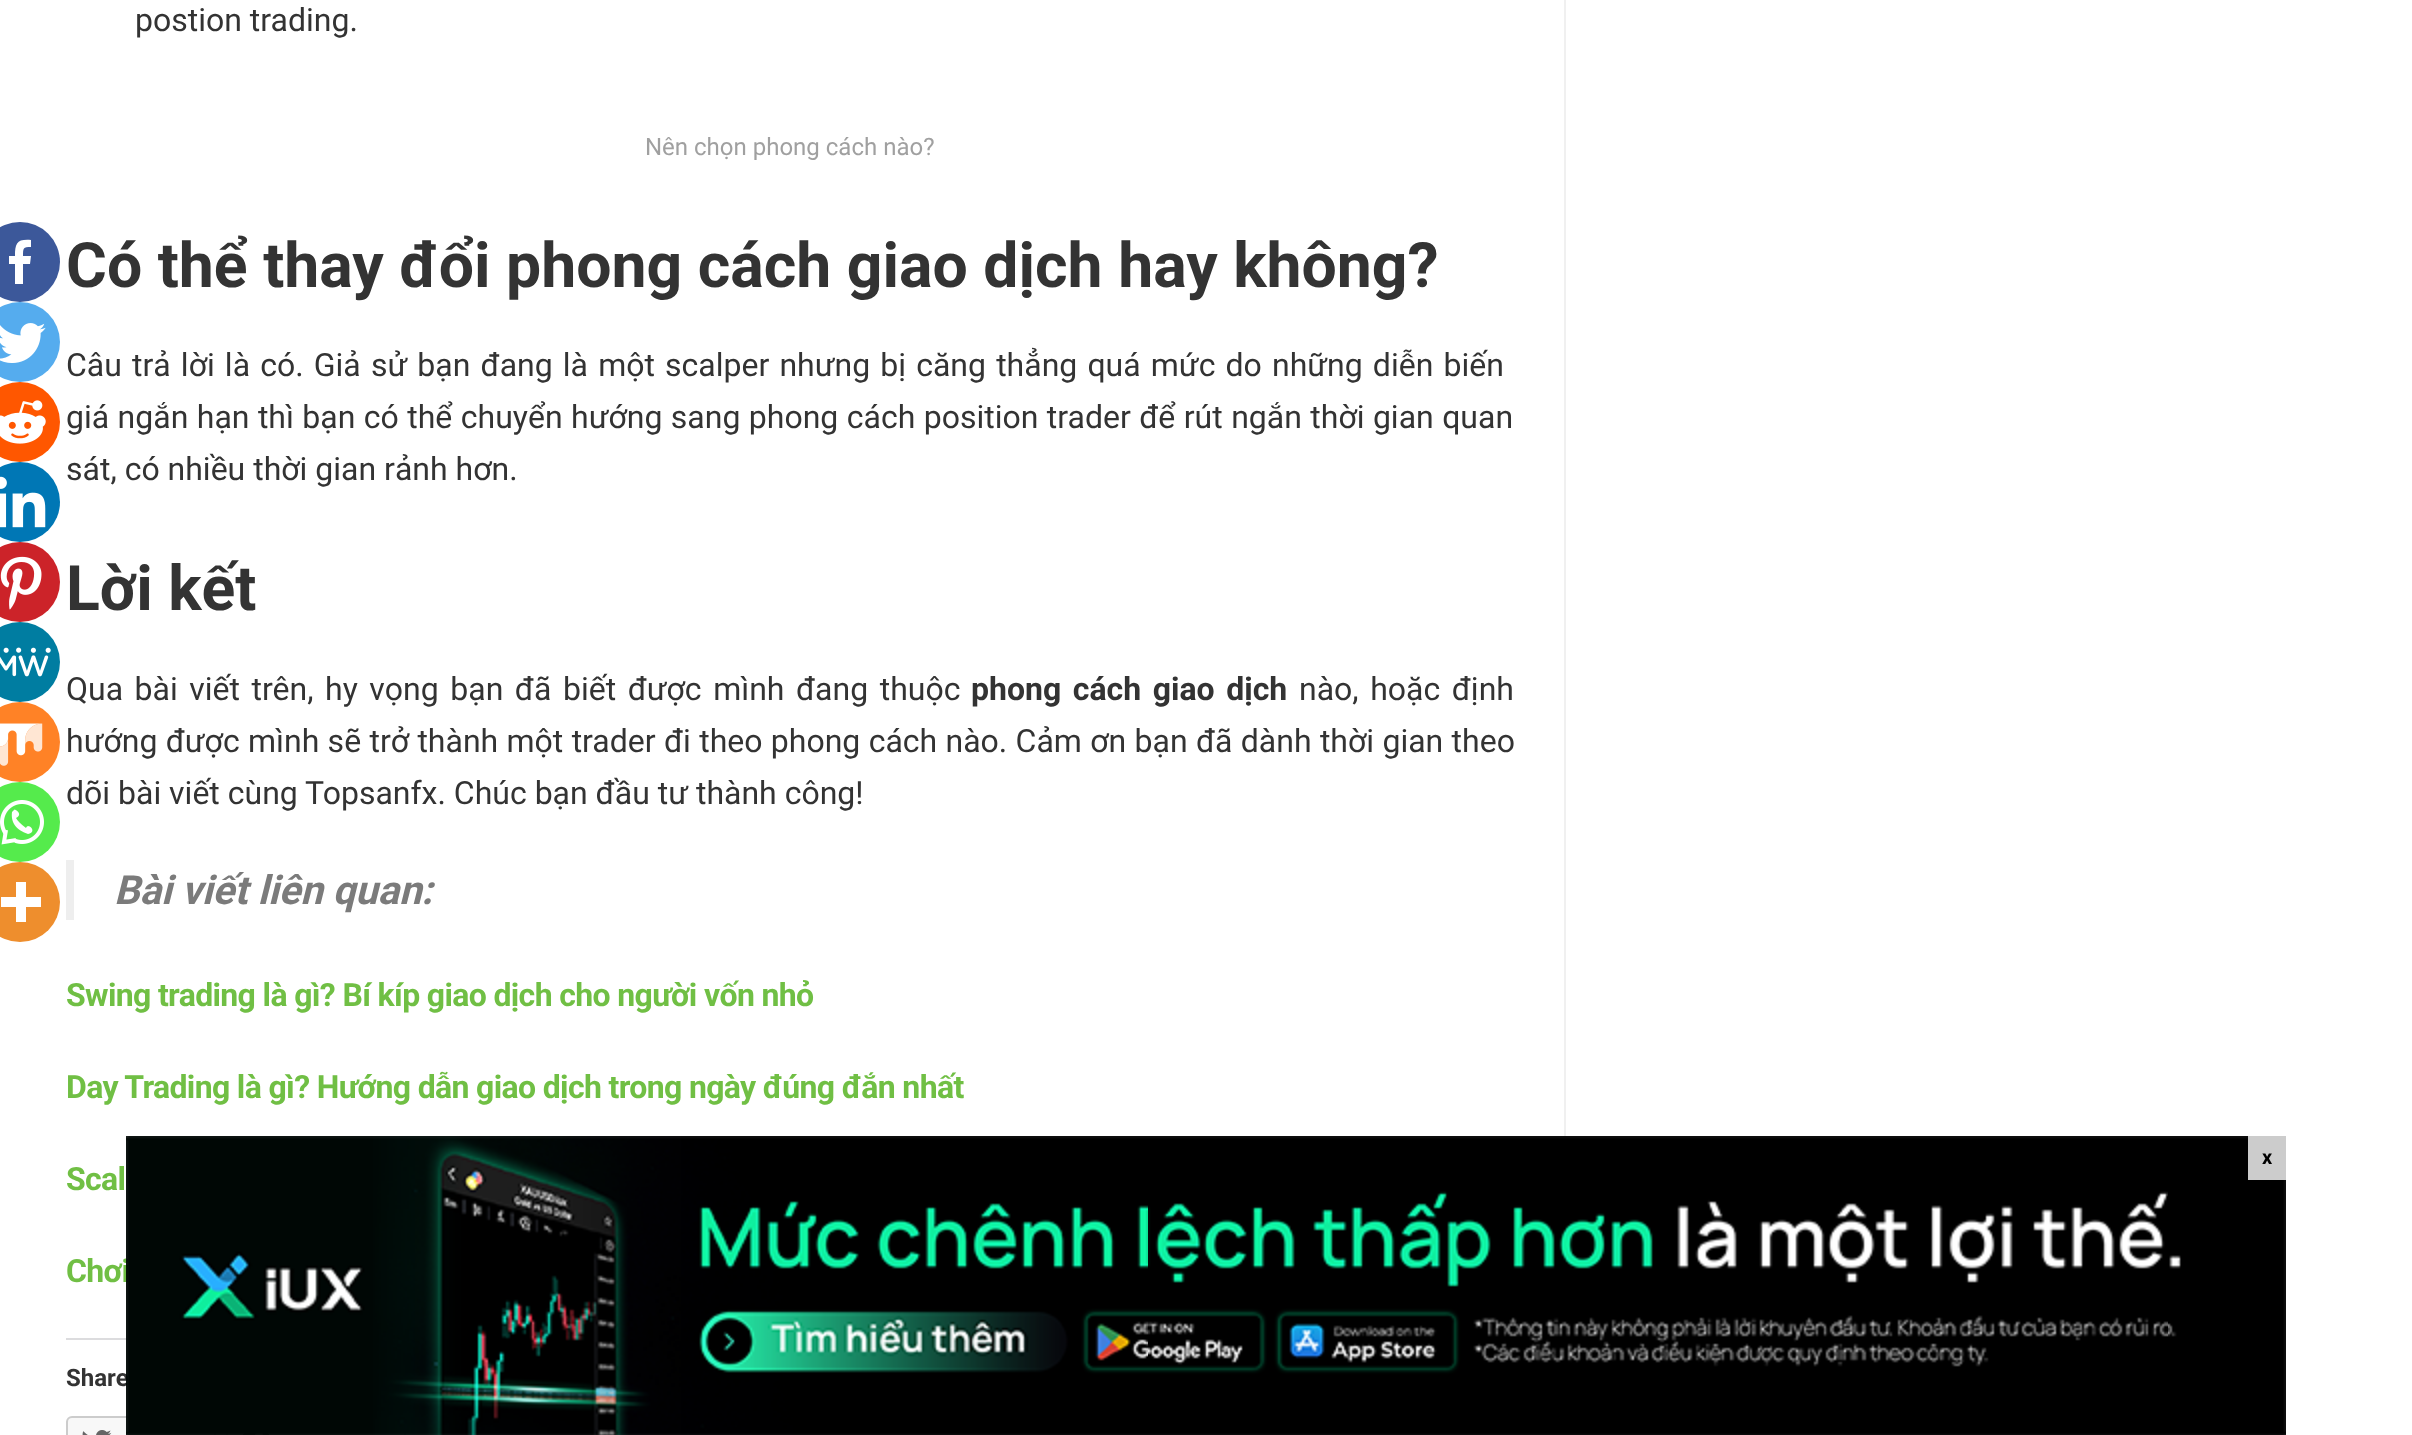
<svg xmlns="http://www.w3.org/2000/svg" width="2412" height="1435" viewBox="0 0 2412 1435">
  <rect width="100%" height="100%" fill="#ffffff"/>
  <rect x="1564" y="0" width="2" height="1435" fill="#f0f0f0"/>
  <text x="135" y="31" font-family="Roboto" font-size="32" fill="#333333">postion trading.</text>
  <text x="645" y="155" font-family="Roboto" font-size="24" fill="#a0a0a0">Nên chọn phong cách nào?</text>
  <circle cx="20" cy="262" r="40" fill="#3c589a"/>
  <path d="M23 284V264H30L31 256H23C23 248 23 247 31 247V240C17 239 15 243 15 256H9V264H15V284Z" fill="#ffffff"/>
  <circle cx="20" cy="342" r="40" fill="#55acee"/>
  <image x="0" y="323" width="46" height="40" href="img1.png"/>
  <circle cx="20" cy="422" r="40" fill="#ff5700"/>
  <image x="0" y="400" width="46" height="44" href="img2.png"/>
  <circle cx="20" cy="502" r="40" fill="#0077b5"/>
  <image x="0" y="476" width="46" height="52" href="img3.png"/>
  <circle cx="20" cy="582" r="40" fill="#cc2329"/>
  <image x="0" y="556" width="42" height="54" href="img4.png"/>
  <circle cx="20" cy="662" r="40" fill="#007da1"/>
  <image x="0" y="647" width="51" height="30" href="img5.png"/>
  <circle cx="20" cy="742" r="40" fill="#ff8226"/>
  <image x="0" y="723" width="43" height="43" href="img6.png"/>
  <circle cx="20" cy="822" r="40" fill="#55eb4c"/>
  <image x="0" y="800" width="44" height="45" href="img7.png"/>
  <circle cx="20" cy="902" r="40" fill="#ee8e2d"/>
  <path d="M26 897V882H16V897H1V907H16V922H26V907H41V897Z" fill="#ffffff" fill-rule="evenodd"/>
  <text x="66" y="287" font-family="Roboto" font-size="62.5" font-weight="bold" fill="#333333">Có thể thay đổi phong cách giao dịch hay không?</text>
  <text x="66" y="376" word-spacing="2.2" font-family="Roboto" font-size="32" fill="#333333">Câu trả lời là có. Giả sử bạn đang là một scalper nhưng bị căng thẳng quá mức do những diễn biến</text>
  <text x="66" y="428" word-spacing="0.5" font-family="Roboto" font-size="32" fill="#333333">giá ngắn hạn thì bạn có thể chuyển hướng sang phong cách position trader để rút ngắn thời gian quan</text>
  <text x="66" y="480" font-family="Roboto" font-size="32" fill="#333333">sát, có nhiều thời gian rảnh hơn.</text>
  <text x="66" y="610" font-family="Roboto" font-size="62.5" font-weight="bold" fill="#333333">Lời kết</text>
  <text x="66" y="700" word-spacing="3.6" font-family="Roboto" font-size="32" fill="#333333">Qua bài viết trên, hy vọng bạn đã biết được mình đang thuộc</text>
  <text x="971" y="700" word-spacing="3.6" font-family="Roboto" font-size="32" font-weight="bold" fill="#333333">phong cách giao dịch</text>
  <text x="1299" y="700" word-spacing="3.6" font-family="Roboto" font-size="32" fill="#333333">nào, hoặc định</text>
  <text x="66" y="752" word-spacing="0.4" font-family="Roboto" font-size="32" fill="#333333">hướng được mình sẽ trở thành một trader đi theo phong cách nào. Cảm ơn bạn đã dành thời gian theo</text>
  <text x="66" y="804" font-family="Roboto" font-size="32" fill="#333333">dõi bài viết cùng Topsanfx. Chúc bạn đầu tư thành công!</text>
  <rect x="66" y="860" width="8" height="60" fill="#eeeeee"/>
  <text x="114" y="904" font-family="Roboto" font-size="40" font-weight="bold" font-style="italic" fill="#7b7b7b">Bài viết liên quan:</text>
  <text x="66" y="1006" font-family="Roboto" font-size="32" font-weight="bold" letter-spacing="-0.65" fill="#70bf44">Swing trading là gì? Bí kíp giao dịch cho người vốn nhỏ</text>
  <text x="66" y="1098" font-family="Roboto" font-size="32" font-weight="bold" letter-spacing="-0.65" fill="#70bf44">Day Trading là gì? Hướng dẫn giao dịch trong ngày đúng đắn nhất</text>
  <text x="66" y="1190" font-family="Roboto" font-size="32" font-weight="bold" letter-spacing="-0.65" fill="#70bf44">Scal</text>
  <text x="66" y="1282" font-family="Roboto" font-size="32" font-weight="bold" letter-spacing="-0.65" fill="#70bf44">Chơi</text>
  <rect x="66" y="1338" width="63" height="2" fill="#dcdcde"/>
  <text x="66" y="1386" font-family="Roboto" font-size="24" font-weight="bold" fill="#333333">Share</text>
  <rect x="67" y="1417" width="148" height="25" rx="5" fill="#f8f8f8" stroke="#cccccc" stroke-width="2"/>
  <image x="82" y="1430" width="30" height="5" href="img8.png"/>
  <rect x="227" y="1417" width="178" height="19" fill="none" stroke="#cccccc" stroke-width="2"/>
  <image x="242" y="1433" width="28" height="2" href="img9.png"/>
  <image x="126" y="1136" width="2160" height="299" href="img10.png"/>
  <rect x="2248" y="1136" width="38" height="44" fill="#cccccc"/>
  <text x="2262" y="1164" font-family="Roboto" font-size="20" font-weight="bold" fill="#000000">x</text>
</svg>
